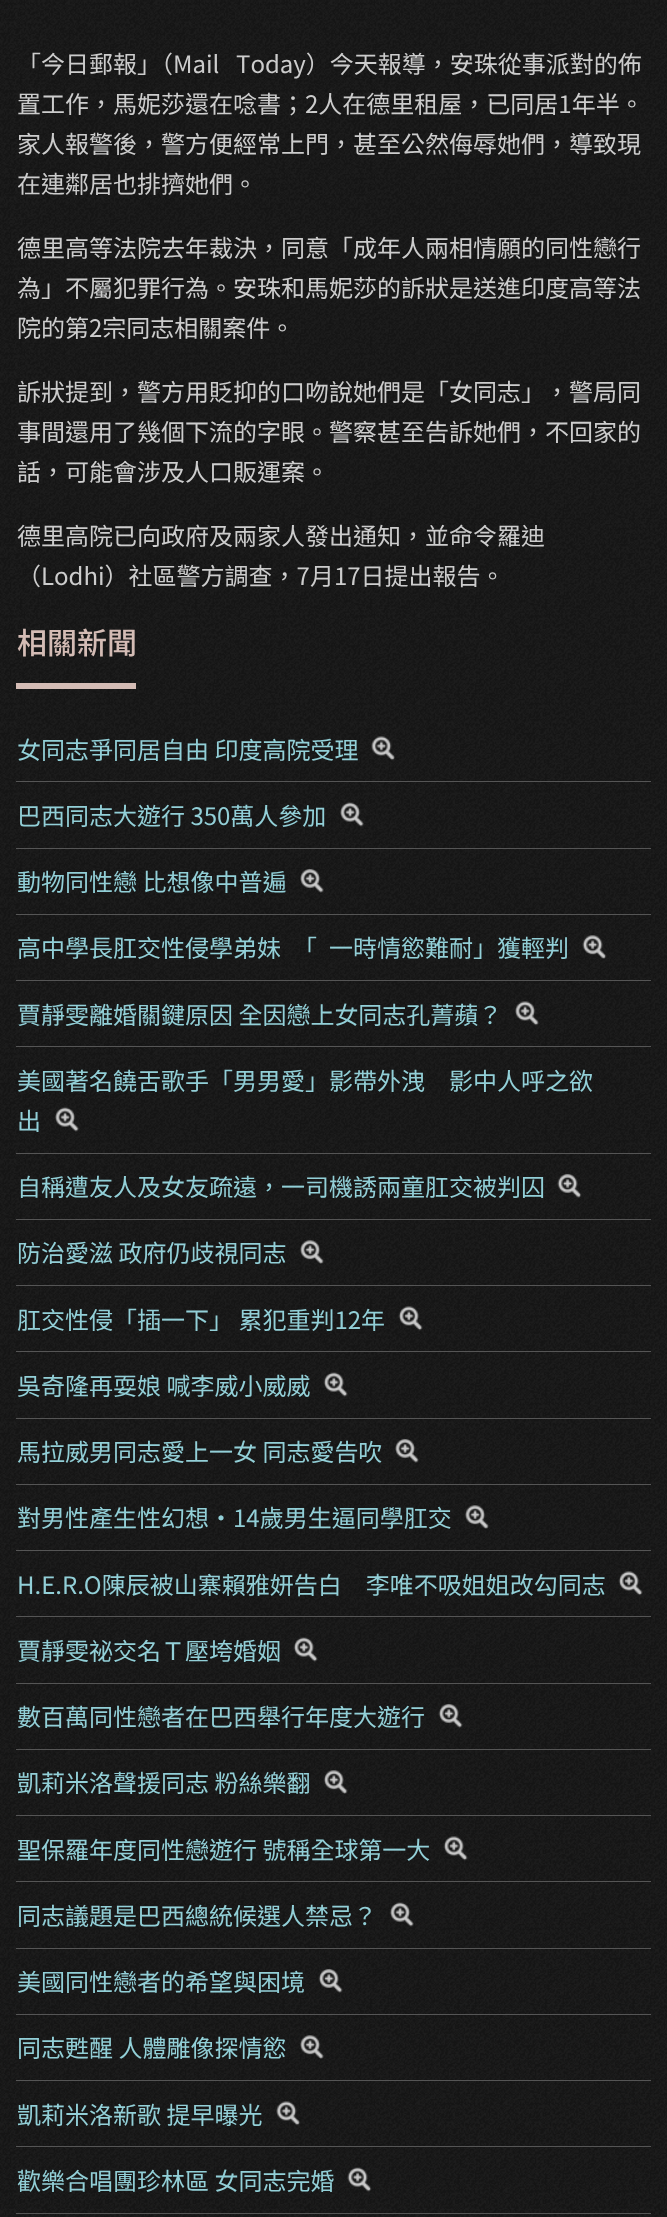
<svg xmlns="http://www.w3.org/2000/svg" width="667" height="2217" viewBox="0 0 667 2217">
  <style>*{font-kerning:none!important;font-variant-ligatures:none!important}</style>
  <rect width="100%" height="100%" fill="#ffffff"/>
  <image x="0" y="0" width="667" height="2217" href="img1.png"/>
  <text x="17" y="73" font-family="Noto Sans TC" font-size="24" fill="#cccccc">「今日郵報」（Mail</text>
  <text x="236" y="73" font-family="Noto Sans TC" font-size="24" fill="#cccccc">Today）今天報導，安珠從事派對的佈</text>
  <text x="17" y="113" font-family="Noto Sans TC" font-size="24" fill="#cccccc">置工作，馬妮莎還在唸書；2人在德里租屋，已同居1年半。</text>
  <text x="17" y="153" font-family="Noto Sans TC" font-size="24" fill="#cccccc">家人報警後，警方便經常上門，甚至公然侮辱她們，導致現</text>
  <text x="17" y="193" font-family="Noto Sans TC" font-size="24" fill="#cccccc">在連鄰居也排擠她們。</text>
  <text x="17" y="257" font-family="Noto Sans TC" font-size="24" fill="#cccccc">德里高等法院去年裁決，同意「成年人兩相情願的同性戀行</text>
  <text x="17" y="297" font-family="Noto Sans TC" font-size="24" fill="#cccccc">為」不屬犯罪行為。安珠和馬妮莎的訴狀是送進印度高等法</text>
  <text x="17" y="337" font-family="Noto Sans TC" font-size="24" fill="#cccccc">院的第2宗同志相關案件。</text>
  <text x="17" y="401" font-family="Noto Sans TC" font-size="24" fill="#cccccc">訴狀提到，警方用貶抑的口吻說她們是「女同志」</text>
  <text x="545" y="401" font-family="Noto Sans TC" font-size="24" fill="#cccccc">，警局同</text>
  <text x="17" y="441" font-family="Noto Sans TC" font-size="24" fill="#cccccc">事間還用了幾個下流的字眼。警察甚至告訴她們，不回家的</text>
  <text x="17" y="481" font-family="Noto Sans TC" font-size="24" fill="#cccccc">話，可能會涉及人口販運案。</text>
  <text x="17" y="545" font-family="Noto Sans TC" font-size="24" fill="#cccccc">德里高院已向政府及兩家人發出通知，並命令羅迪</text>
  <text x="17" y="585" font-family="Noto Sans TC" font-size="24" fill="#cccccc">（Lodhi）社區警方調查，7月17日提出報告。</text>
  <rect x="16" y="683" width="120" height="6" fill="#d4bcb5"/>
  <text x="17" y="654" font-family="Noto Sans TC" font-size="30" font-weight="500" fill="#d4bcb5">相關新聞</text>
  <rect x="16" y="781" width="635" height="1" fill="#555555"/>
  <text x="17" y="759" font-family="Noto Sans TC" font-size="24" fill="#92cfd7">女同志爭同居自由 印度高院受理</text>
  <image x="371" y="736" width="24" height="25" href="img2.png"/>
  <rect x="16" y="848" width="635" height="1" fill="#555555"/>
  <text x="17" y="825" font-family="Noto Sans TC" font-size="24" fill="#92cfd7">巴西同志大遊行 350萬人參加</text>
  <image x="340" y="802" width="24" height="25" href="img3.png"/>
  <rect x="16" y="914" width="635" height="1" fill="#555555"/>
  <text x="17" y="891" font-family="Noto Sans TC" font-size="24" fill="#92cfd7">動物同性戀 比想像中普遍</text>
  <image x="300" y="869" width="24" height="24" href="img4.png"/>
  <rect x="16" y="980" width="635" height="1" fill="#555555"/>
  <text x="17" y="957" font-family="Noto Sans TC" font-size="24" fill="#92cfd7">高中學長肛交性侵學弟妹　「</text>
  <text x="329" y="957" font-family="Noto Sans TC" font-size="24" fill="#92cfd7">一時情慾難耐」獲輕判</text>
  <image x="582" y="935" width="25" height="24" href="img5.png"/>
  <rect x="16" y="1046" width="635" height="1" fill="#555555"/>
  <text x="17" y="1024" font-family="Noto Sans TC" font-size="24" fill="#92cfd7">賈靜雯離婚關鍵原因 全因戀上女同志孔菁蘋？</text>
  <image x="515" y="1001" width="24" height="25" href="img6.png"/>
  <rect x="16" y="1153" width="635" height="1" fill="#555555"/>
  <text x="17" y="1090" font-family="Noto Sans TC" font-size="24" fill="#92cfd7">美國著名饒舌歌手「男男愛」影帶外洩　影中人呼之欲</text>
  <text x="17" y="1130" font-family="Noto Sans TC" font-size="24" fill="#92cfd7">出</text>
  <image x="55" y="1107" width="24" height="25" href="img7.png"/>
  <rect x="16" y="1219" width="635" height="1" fill="#555555"/>
  <text x="17" y="1196" font-family="Noto Sans TC" font-size="24" fill="#92cfd7">自稱遭友人及女友疏遠，一司機誘兩童肛交被判囚</text>
  <image x="557" y="1174" width="25" height="24" href="img8.png"/>
  <rect x="16" y="1285" width="635" height="1" fill="#555555"/>
  <text x="17" y="1262" font-family="Noto Sans TC" font-size="24" fill="#92cfd7">防治愛滋 政府仍歧視同志</text>
  <image x="300" y="1240" width="24" height="24" href="img9.png"/>
  <rect x="16" y="1351" width="635" height="1" fill="#555555"/>
  <text x="17" y="1329" font-family="Noto Sans TC" font-size="24" fill="#92cfd7">肛交性侵「插一下」 累犯重判12年</text>
  <image x="398" y="1306" width="25" height="25" href="img10.png"/>
  <rect x="16" y="1418" width="635" height="1" fill="#555555"/>
  <text x="17" y="1395" font-family="Noto Sans TC" font-size="24" fill="#92cfd7">吳奇隆再耍娘 喊李威小威威</text>
  <image x="323" y="1372" width="25" height="25" href="img11.png"/>
  <rect x="16" y="1484" width="635" height="1" fill="#555555"/>
  <text x="17" y="1461" font-family="Noto Sans TC" font-size="24" fill="#92cfd7">馬拉威男同志愛上一女 同志愛告吹</text>
  <image x="395" y="1439" width="24" height="24" href="img12.png"/>
  <rect x="16" y="1550" width="635" height="1" fill="#555555"/>
  <text x="17" y="1527" font-family="Noto Sans TC" font-size="24" fill="#92cfd7">對男性產生性幻想‧14歲男生逼同學肛交</text>
  <image x="465" y="1505" width="24" height="24" href="img13.png"/>
  <rect x="16" y="1616" width="635" height="1" fill="#555555"/>
  <text x="17" y="1594" font-family="Noto Sans TC" font-size="24" fill="#92cfd7">H.E.R.O陳辰被山寨賴雅妍告白　李唯不吸姐姐改勾同志</text>
  <image x="618" y="1571" width="25" height="25" href="img14.png"/>
  <rect x="16" y="1683" width="635" height="1" fill="#555555"/>
  <text x="17" y="1660" font-family="Noto Sans TC" font-size="24" fill="#92cfd7">賈靜雯祕交名Ｔ壓垮婚姻</text>
  <image x="293" y="1637" width="25" height="25" href="img15.png"/>
  <rect x="16" y="1749" width="635" height="1" fill="#555555"/>
  <text x="17" y="1726" font-family="Noto Sans TC" font-size="24" fill="#92cfd7">數百萬同性戀者在巴西舉行年度大遊行</text>
  <image x="438" y="1704" width="25" height="24" href="img16.png"/>
  <rect x="16" y="1815" width="635" height="1" fill="#555555"/>
  <text x="17" y="1792" font-family="Noto Sans TC" font-size="24" fill="#92cfd7">凱莉米洛聲援同志 粉絲樂翻</text>
  <image x="323" y="1770" width="25" height="24" href="img17.png"/>
  <rect x="16" y="1881" width="635" height="1" fill="#555555"/>
  <text x="17" y="1859" font-family="Noto Sans TC" font-size="24" fill="#92cfd7">聖保羅年度同性戀遊行 號稱全球第一大</text>
  <image x="443" y="1836" width="25" height="25" href="img18.png"/>
  <rect x="16" y="1948" width="635" height="1" fill="#555555"/>
  <text x="17" y="1925" font-family="Noto Sans TC" font-size="24" fill="#92cfd7">同志議題是巴西總統候選人禁忌？</text>
  <image x="390" y="1902" width="24" height="25" href="img19.png"/>
  <rect x="16" y="2014" width="635" height="1" fill="#555555"/>
  <text x="17" y="1991" font-family="Noto Sans TC" font-size="24" fill="#92cfd7">美國同性戀者的希望與困境</text>
  <image x="318" y="1969" width="25" height="24" href="img20.png"/>
  <rect x="16" y="2080" width="635" height="1" fill="#555555"/>
  <text x="17" y="2057" font-family="Noto Sans TC" font-size="24" fill="#92cfd7">同志甦醒 人體雕像探情慾</text>
  <image x="300" y="2035" width="24" height="24" href="img21.png"/>
  <rect x="16" y="2146" width="635" height="1" fill="#555555"/>
  <text x="17" y="2124" font-family="Noto Sans TC" font-size="24" fill="#92cfd7">凱莉米洛新歌 提早曝光</text>
  <image x="276" y="2101" width="24" height="25" href="img22.png"/>
  <rect x="16" y="2213" width="635" height="1" fill="#555555"/>
  <text x="17" y="2190" font-family="Noto Sans TC" font-size="24" fill="#92cfd7">歡樂合唱團珍林區 女同志完婚</text>
  <image x="347" y="2167" width="25" height="25" href="img23.png"/>
</svg>
